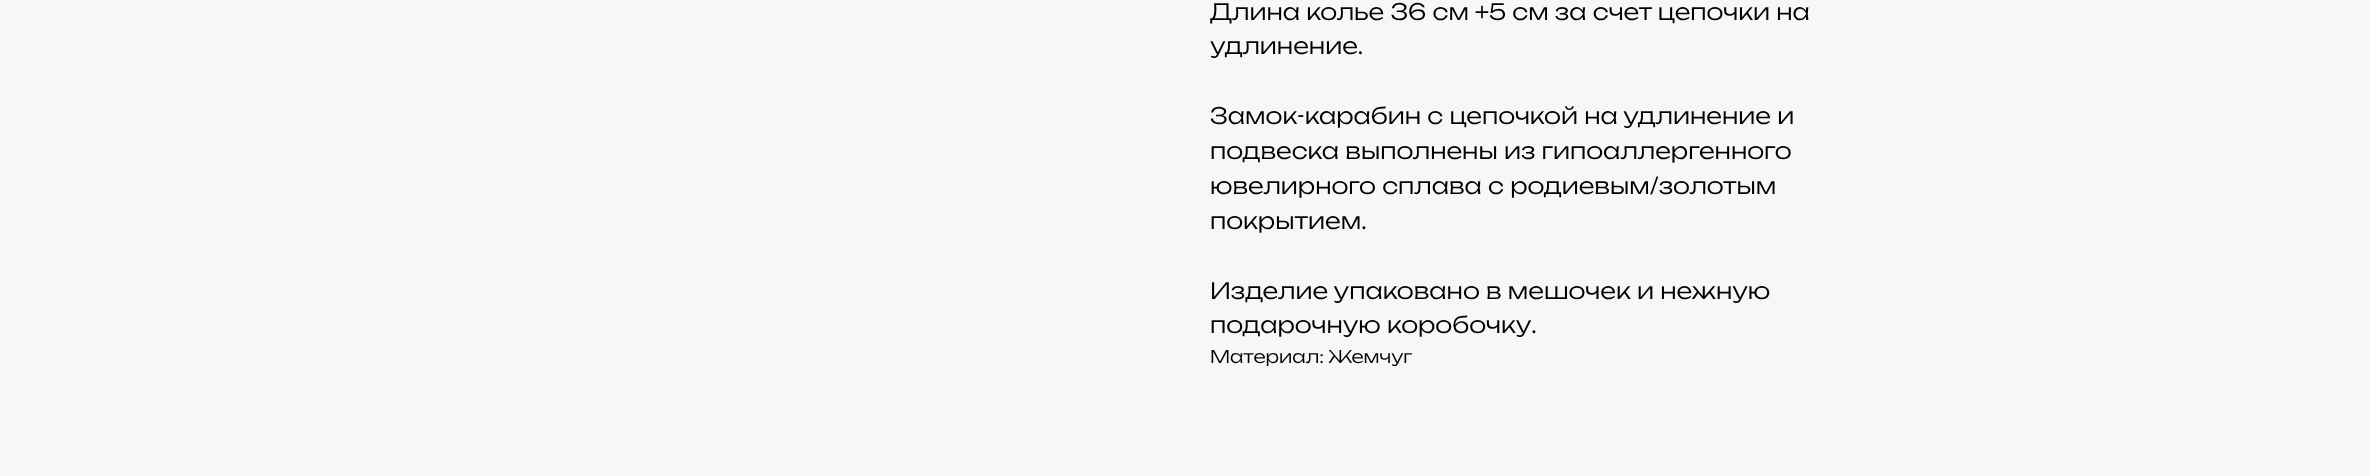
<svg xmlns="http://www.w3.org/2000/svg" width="2370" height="476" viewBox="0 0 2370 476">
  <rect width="100%" height="100%" fill="#f7f7f7"/>
  <text x="1210" y="20" font-family="Unbounded" font-size="22.5" font-weight="300" fill="#000000">Длина колье 36 см +5 см за счет цепочки на</text>
  <text x="1210" y="54" font-family="Unbounded" font-size="22.5" font-weight="300" fill="#000000">удлинение.</text>
  <text x="1210" y="124" font-family="Unbounded" font-size="22.5" font-weight="300" fill="#000000">Замок-карабин с цепочкой на удлинение и</text>
  <text x="1210" y="159" font-family="Unbounded" font-size="22.5" font-weight="300" fill="#000000">подвеска выполнены из гипоаллергенного</text>
  <text x="1210" y="194" font-family="Unbounded" font-size="22.5" font-weight="300" fill="#000000">ювелирного сплава с родиевым/золотым</text>
  <text x="1210" y="229" font-family="Unbounded" font-size="22.5" font-weight="300" fill="#000000">покрытием.</text>
  <text x="1210" y="299" font-family="Unbounded" font-size="22.5" font-weight="300" fill="#000000">Изделие упаковано в мешочек и нежную</text>
  <text x="1210" y="333" font-family="Unbounded" font-size="22.5" font-weight="300" fill="#000000">подарочную коробочку.</text>
  <text x="1210" y="363" font-family="Unbounded" font-size="17.5" font-weight="300" fill="#000000">Материал: Жемчуг</text>
</svg>
